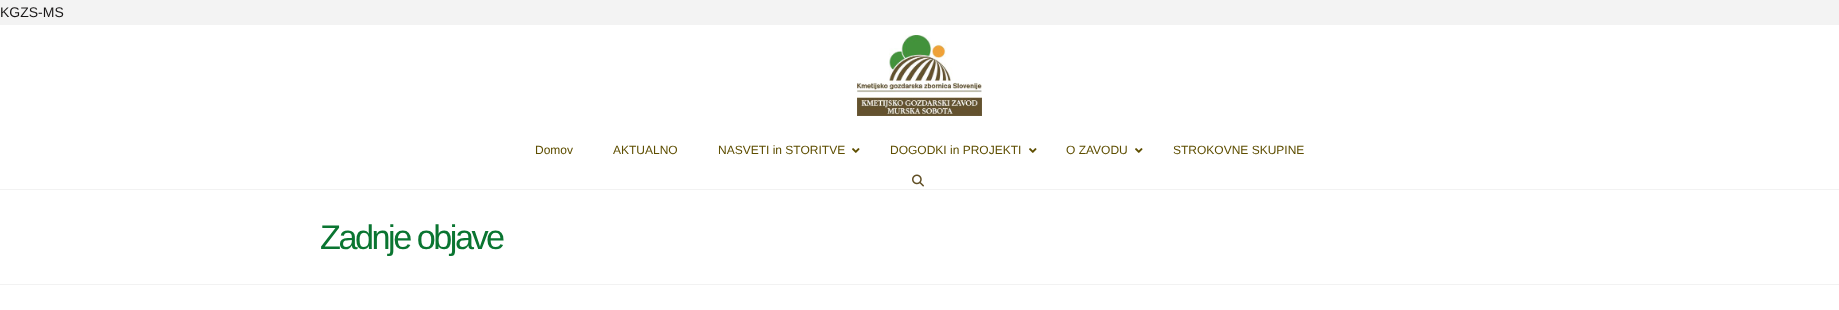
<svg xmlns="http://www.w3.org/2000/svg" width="1839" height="310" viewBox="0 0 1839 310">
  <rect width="100%" height="100%" fill="#f3f3f3"/>
  <text x="0" y="17" font-family="Liberation Sans" font-size="14" fill="#181616">KGZS-MS</text>
  <rect x="0" y="25" width="1839" height="285" fill="#ffffff"/>
  <image x="857" y="35" width="125" height="81" href="img1.png"/>
  <text x="535" y="154" font-family="Liberation Sans" font-size="12" fill="#5e4e00">Domov</text>
  <text x="613" y="154" font-family="Liberation Sans" font-size="12" fill="#5e4e00">AKTUALNO</text>
  <text x="718" y="154" font-family="Liberation Sans" font-size="12" fill="#5e4e00">NASVETI in STORITVE</text>
  <image x="852" y="148" width="8" height="5" href="img2.png"/>
  <text x="890" y="154" font-family="Liberation Sans" font-size="12" fill="#5e4e00">DOGODKI in PROJEKTI</text>
  <image x="1029" y="148" width="8" height="5" href="img2.png"/>
  <text x="1066" y="154" font-family="Liberation Sans" font-size="12" fill="#5e4e00">O ZAVODU</text>
  <image x="1135" y="148" width="8" height="5" href="img2.png"/>
  <text x="1173" y="154" font-family="Liberation Sans" font-size="12" fill="#5e4e00">STROKOVNE SKUPINE</text>
  <image x="912" y="174" width="12" height="13" href="img3.png"/>
  <rect x="0" y="189" width="1839" height="1" fill="#f2f2f2"/>
  <rect x="0" y="284" width="1839" height="1" fill="#f2f2f2"/>
  <text x="320" y="249" font-family="Liberation Sans" font-size="34.25" letter-spacing="-2.5" fill="#0a7531">Zadnje objave</text>
</svg>
